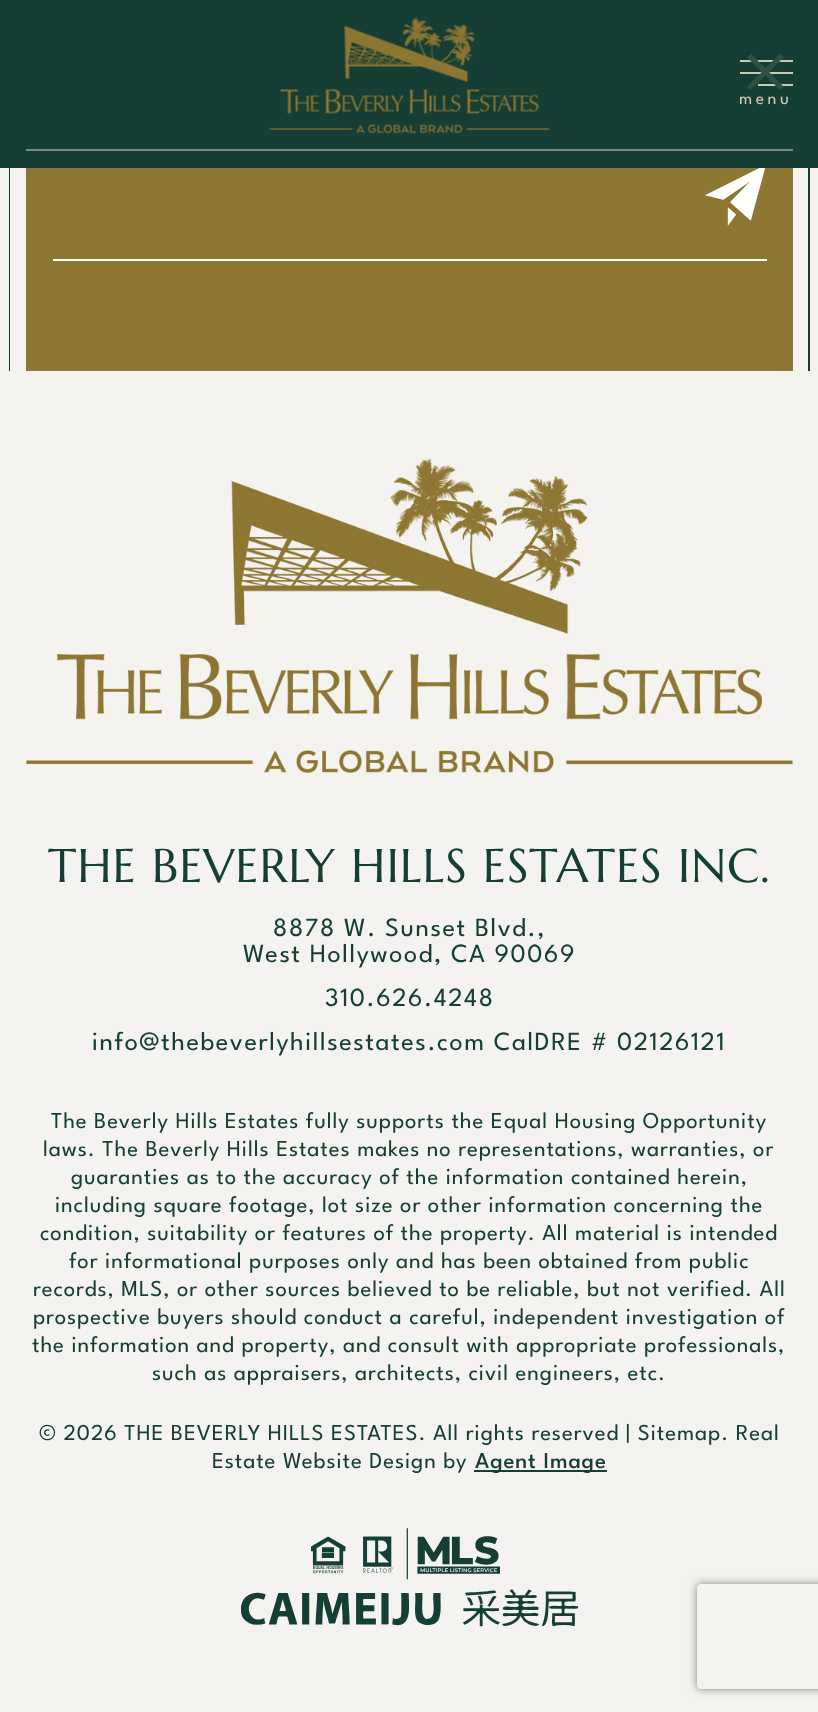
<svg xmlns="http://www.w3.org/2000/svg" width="818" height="1712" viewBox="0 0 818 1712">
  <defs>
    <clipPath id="clip1"><path d="M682 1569H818V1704H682ZM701 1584H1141C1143 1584 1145 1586 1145 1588V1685C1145 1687 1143 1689 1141 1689H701C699 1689 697 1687 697 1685V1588C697 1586 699 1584 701 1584Z" clip-rule="evenodd"/></clipPath>
    <filter id="blur1" x="-50%" y="-200%" width="200%" height="500%"><feGaussianBlur stdDeviation="4.5"/></filter>
  </defs>
  <rect width="100%" height="100%" fill="#f4f3ef"/>
  <rect x="26" y="168" width="767" height="203" fill="#8d7631"/>
  <path d="M410-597C631-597 810-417 810-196V371H9V-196C9-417 188-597 410-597ZM410-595C630-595 808-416 808-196V371H10V-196C10-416 189-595 410-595Z" fill="#153e35" fill-rule="evenodd"/>
  <text x="705" y="222" font-family="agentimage" font-size="61" fill="#ffffff">򰈵</text>
  <rect x="0" y="0" width="818" height="168" fill="#153e35"/>
  <rect x="740" y="60" width="53" height="2" fill="#cfc9b4"/>
  <rect x="740" y="72" width="53" height="2" fill="#cfc9b4"/>
  <rect x="758" y="84" width="35" height="2" fill="#cfc9b4"/>
  <text x="747" y="88" font-family="agentimage" font-size="36.75" fill="#2e5146">򰉇</text>
  <image x="269" y="17" width="281" height="117" href="img1.png"/>
  <text x="739" y="104" font-family="League Spartan" font-size="17.5" letter-spacing="3.5" fill="#cfc9b4">menu</text>
  <rect x="26" y="149" width="767" height="2" fill="#7b8a7b"/>
  <rect x="53" y="259" width="714" height="2" fill="#ffffff"/>
  <image x="26" y="458" width="767" height="315" href="img2.png"/>
  <text x="48" y="882" font-family="Marcellus" font-size="47.25" letter-spacing="0.95" fill="#153e35">THE BEVERLY HILLS ESTATES INC.</text>
  <text x="273" y="936" font-family="League Spartan" font-size="26.25" letter-spacing="1.55" fill="#153e35">8878 W. Sunset Blvd.,</text>
  <text x="243" y="962" font-family="League Spartan" font-size="26.25" letter-spacing="1.55" fill="#153e35">West Hollywood, CA 90069</text>
  <text x="325" y="1006" font-family="League Spartan" font-size="26.25" letter-spacing="1.55" fill="#153e35">310.626.4248</text>
  <text x="92" y="1050" font-family="League Spartan" font-size="26.25" letter-spacing="1.55" fill="#153e35">info@thebeverlyhillsestates.com CalDRE # 02126121</text>
  <text x="51" y="1128" font-family="League Spartan" font-size="22.75" letter-spacing="0.9" fill="#153e35">The Beverly Hills Estates fully supports the Equal Housing Opportunity</text>
  <text x="43" y="1156" font-family="League Spartan" font-size="22.75" letter-spacing="0.9" fill="#153e35">laws. The Beverly Hills Estates makes no representations, warranties, or</text>
  <text x="71" y="1184" font-family="League Spartan" font-size="22.75" letter-spacing="0.9" fill="#153e35">guaranties as to the accuracy of the information contained herein,</text>
  <text x="55" y="1212" font-family="League Spartan" font-size="22.75" letter-spacing="0.9" fill="#153e35">including square footage, lot size or other information concerning the</text>
  <text x="40" y="1240" font-family="League Spartan" font-size="22.75" letter-spacing="0.9" fill="#153e35">condition, suitability or features of the property. All material is intended</text>
  <text x="69" y="1268" font-family="League Spartan" font-size="22.75" letter-spacing="0.9" fill="#153e35">for informational purposes only and has been obtained from public</text>
  <text x="33" y="1296" font-family="League Spartan" font-size="22.75" letter-spacing="0.9" fill="#153e35">records, MLS, or other sources believed to be reliable, but not verified. All</text>
  <text x="33" y="1324" font-family="League Spartan" font-size="22.75" letter-spacing="0.9" fill="#153e35">prospective buyers should conduct a careful, independent investigation of</text>
  <text x="32" y="1352" font-family="League Spartan" font-size="22.75" letter-spacing="0.9" fill="#153e35">the information and property, and consult with appropriate professionals,</text>
  <text x="152" y="1380" font-family="League Spartan" font-size="22.75" letter-spacing="0.9" fill="#153e35">such as appraisers, architects, civil engineers, etc.</text>
  <text x="39" y="1440" font-family="League Spartan" font-size="22.75" letter-spacing="0.9" fill="#153e35">© 2026 THE BEVERLY HILLS ESTATES. All rights reserved | Sitemap. Real</text>
  <text x="212" y="1468" font-family="League Spartan" font-size="22.75" letter-spacing="0.9" fill="#153e35">Estate Website Design by</text>
  <rect x="474" y="1470" width="133" height="2" fill="#153e35"/>
  <text x="475" y="1468" font-family="League Spartan" font-size="22.75" font-weight="500" letter-spacing="0.9" fill="#153e35">Agent Image</text>
  <text x="311" y="1571" font-family="agentimage" font-size="36.75" fill="#153e35">򰂐</text>
  <text x="363" y="1576" font-family="agentimage" font-size="51" fill="#153e35">򰌇</text>
  <text x="241" y="1624" font-family="agentimage" font-size="36.75" fill="#153e35">򰆘</text>
  <g clip-path="url(#clip1)">
    <rect x="697" y="1584" width="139" height="105" rx="4" fill="#808080" filter="url(#blur1)"/>
  </g>
</svg>
